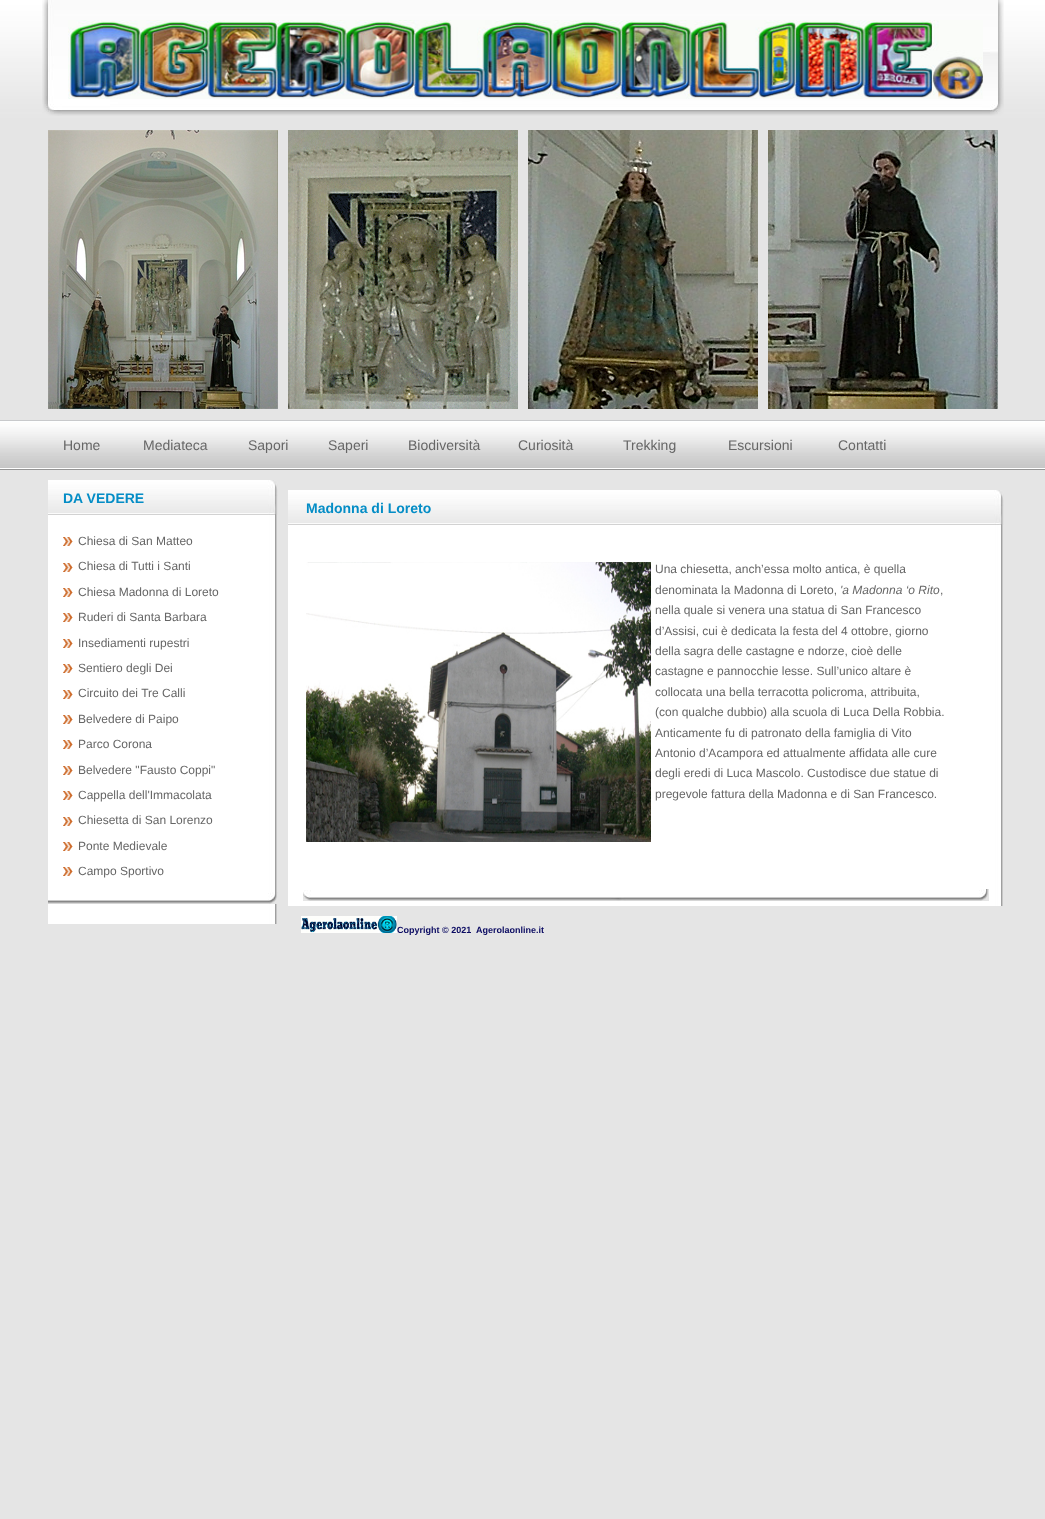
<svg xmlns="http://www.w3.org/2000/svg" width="1045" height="1519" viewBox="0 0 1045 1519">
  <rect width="100%" height="100%" fill="#e5e5e5"/>
  <image x="0" y="0" width="1045" height="470" href="img1.png"/>
  <image x="42" y="0" width="962" height="116" href="img2.png"/>
  <image x="68" y="20" width="915" height="79" href="img3.png"/>
  <image x="48" y="130" width="230" height="279" href="img4.png"/>
  <image x="48" y="130" width="229" height="184" href="img5.png"/>
  <image x="288" y="130" width="230" height="279" href="img6.png"/>
  <image x="528" y="130" width="230" height="279" href="img7.png"/>
  <image x="768" y="130" width="230" height="279" href="img8.png"/>
  <text x="63" y="450" font-family="Liberation Sans" font-size="14" fill="#666666">Home</text>
  <text x="143" y="450" font-family="Liberation Sans" font-size="14" fill="#666666">Mediateca</text>
  <text x="248" y="450" font-family="Liberation Sans" font-size="14" fill="#666666">Sapori</text>
  <text x="328" y="450" font-family="Liberation Sans" font-size="14" fill="#666666">Saperi</text>
  <text x="408" y="450" font-family="Liberation Sans" font-size="14" fill="#666666">Biodiversità</text>
  <text x="518" y="450" font-family="Liberation Sans" font-size="14" fill="#666666">Curiosità</text>
  <text x="623" y="450" font-family="Liberation Sans" font-size="14" fill="#666666">Trekking</text>
  <text x="728" y="450" font-family="Liberation Sans" font-size="14" fill="#666666">Escursioni</text>
  <text x="838" y="450" font-family="Liberation Sans" font-size="14" fill="#666666">Contatti</text>
  <image x="48" y="515" width="229" height="409" href="img9.png"/>
  <image x="48" y="480" width="230" height="35" href="img10.png"/>
  <text x="63" y="503" font-family="Liberation Sans" font-size="14" font-weight="bold" fill="#048dc6">DA VEDERE</text>
  <image x="63" y="537" width="10" height="9" href="img11.png"/>
  <text x="78" y="545" font-family="Liberation Sans" font-size="12" fill="#666666">Chiesa di San Matteo</text>
  <image x="63" y="563" width="10" height="9" href="img11.png"/>
  <text x="78" y="570" font-family="Liberation Sans" font-size="12" fill="#666666">Chiesa di Tutti i Santi</text>
  <image x="63" y="588" width="10" height="9" href="img11.png"/>
  <text x="78" y="596" font-family="Liberation Sans" font-size="12" fill="#666666">Chiesa Madonna di Loreto</text>
  <image x="63" y="613" width="10" height="9" href="img11.png"/>
  <text x="78" y="621" font-family="Liberation Sans" font-size="12" fill="#666666">Ruderi di Santa Barbara</text>
  <image x="63" y="639" width="10" height="9" href="img11.png"/>
  <text x="78" y="647" font-family="Liberation Sans" font-size="12" fill="#666666">Insediamenti rupestri</text>
  <image x="63" y="664" width="10" height="9" href="img11.png"/>
  <text x="78" y="672" font-family="Liberation Sans" font-size="12" fill="#666666">Sentiero degli Dei</text>
  <image x="63" y="690" width="10" height="9" href="img11.png"/>
  <text x="78" y="697" font-family="Liberation Sans" font-size="12" fill="#666666">Circuito dei Tre Calli</text>
  <image x="63" y="715" width="10" height="9" href="img11.png"/>
  <text x="78" y="723" font-family="Liberation Sans" font-size="12" fill="#666666">Belvedere di Paipo</text>
  <image x="63" y="740" width="10" height="9" href="img11.png"/>
  <text x="78" y="748" font-family="Liberation Sans" font-size="12" fill="#666666">Parco Corona</text>
  <image x="63" y="766" width="10" height="9" href="img11.png"/>
  <text x="78" y="774" font-family="Liberation Sans" font-size="12" fill="#666666">Belvedere "Fausto Coppi"</text>
  <image x="63" y="791" width="10" height="9" href="img11.png"/>
  <text x="78" y="799" font-family="Liberation Sans" font-size="12" fill="#666666">Cappella dell'Immacolata</text>
  <image x="63" y="817" width="10" height="9" href="img11.png"/>
  <text x="78" y="824" font-family="Liberation Sans" font-size="12" fill="#666666">Chiesetta di San Lorenzo</text>
  <image x="63" y="842" width="10" height="9" href="img11.png"/>
  <text x="78" y="850" font-family="Liberation Sans" font-size="12" fill="#666666">Ponte Medievale</text>
  <image x="63" y="867" width="10" height="9" href="img11.png"/>
  <text x="78" y="875" font-family="Liberation Sans" font-size="12" fill="#666666">Campo Sportivo</text>
  <image x="48" y="892" width="230" height="12" href="img12.png"/>
  <image x="288" y="525" width="715" height="381" href="img13.png"/>
  <image x="288" y="490" width="716" height="35" href="img14.png"/>
  <text x="306" y="513" font-family="Liberation Sans" font-size="14" font-weight="bold" fill="#048dc6">Madonna di Loreto</text>
  <image x="306" y="562" width="345" height="280" href="img15.png"/>
  <text x="655" y="573" font-family="Liberation Sans" font-size="12" fill="#666666">Una chiesetta, anch’essa molto antica, è quella</text>
  <text x="655" y="594" font-family="Liberation Sans" font-size="12" fill="#666666">denominata la Madonna di Loreto,</text>
  <text x="840" y="594" font-family="Liberation Sans" font-size="12" font-style="italic" fill="#666666">'a Madonna ‘o Rito</text>
  <text x="940" y="594" font-family="Liberation Sans" font-size="12" fill="#666666">,</text>
  <text x="655" y="614" font-family="Liberation Sans" font-size="12" fill="#666666">nella quale si venera una statua di San Francesco</text>
  <text x="655" y="635" font-family="Liberation Sans" font-size="12" fill="#666666">d’Assisi, cui è dedicata la festa del 4 ottobre, giorno</text>
  <text x="655" y="655" font-family="Liberation Sans" font-size="12" fill="#666666">della sagra delle castagne e ndorze, cioè delle</text>
  <text x="655" y="675" font-family="Liberation Sans" font-size="12" fill="#666666">castagne e pannocchie lesse. Sull’unico altare è</text>
  <text x="655" y="696" font-family="Liberation Sans" font-size="12" fill="#666666">collocata una bella terracotta policroma, attribuita,</text>
  <text x="655" y="716" font-family="Liberation Sans" font-size="12" fill="#666666">(con qualche dubbio) alla scuola di Luca Della Robbia.</text>
  <text x="655" y="737" font-family="Liberation Sans" font-size="12" fill="#666666">Anticamente fu di patronato della famiglia di Vito</text>
  <text x="655" y="757" font-family="Liberation Sans" font-size="12" fill="#666666">Antonio d’Acampora ed attualmente affidata alle cure</text>
  <text x="655" y="777" font-family="Liberation Sans" font-size="12" fill="#666666">degli eredi di Luca Mascolo. Custodisce due statue di</text>
  <text x="655" y="798" font-family="Liberation Sans" font-size="12" fill="#666666">pregevole fattura della Madonna e di San Francesco.</text>
  <image x="303" y="889" width="686" height="12" href="img16.png"/>
  <image x="303" y="890" width="8" height="11" href="img17.png"/>
  <image x="301" y="916" width="96" height="17" href="img18.png"/>
  <text x="397" y="933" font-family="Liberation Sans" font-size="9" font-weight="bold" fill="#0b0b62">Copyright © 2021</text>
  <text x="476" y="933" font-family="Liberation Sans" font-size="9" font-weight="bold" fill="#0b0b62">Agerolaonline.it</text>
</svg>
